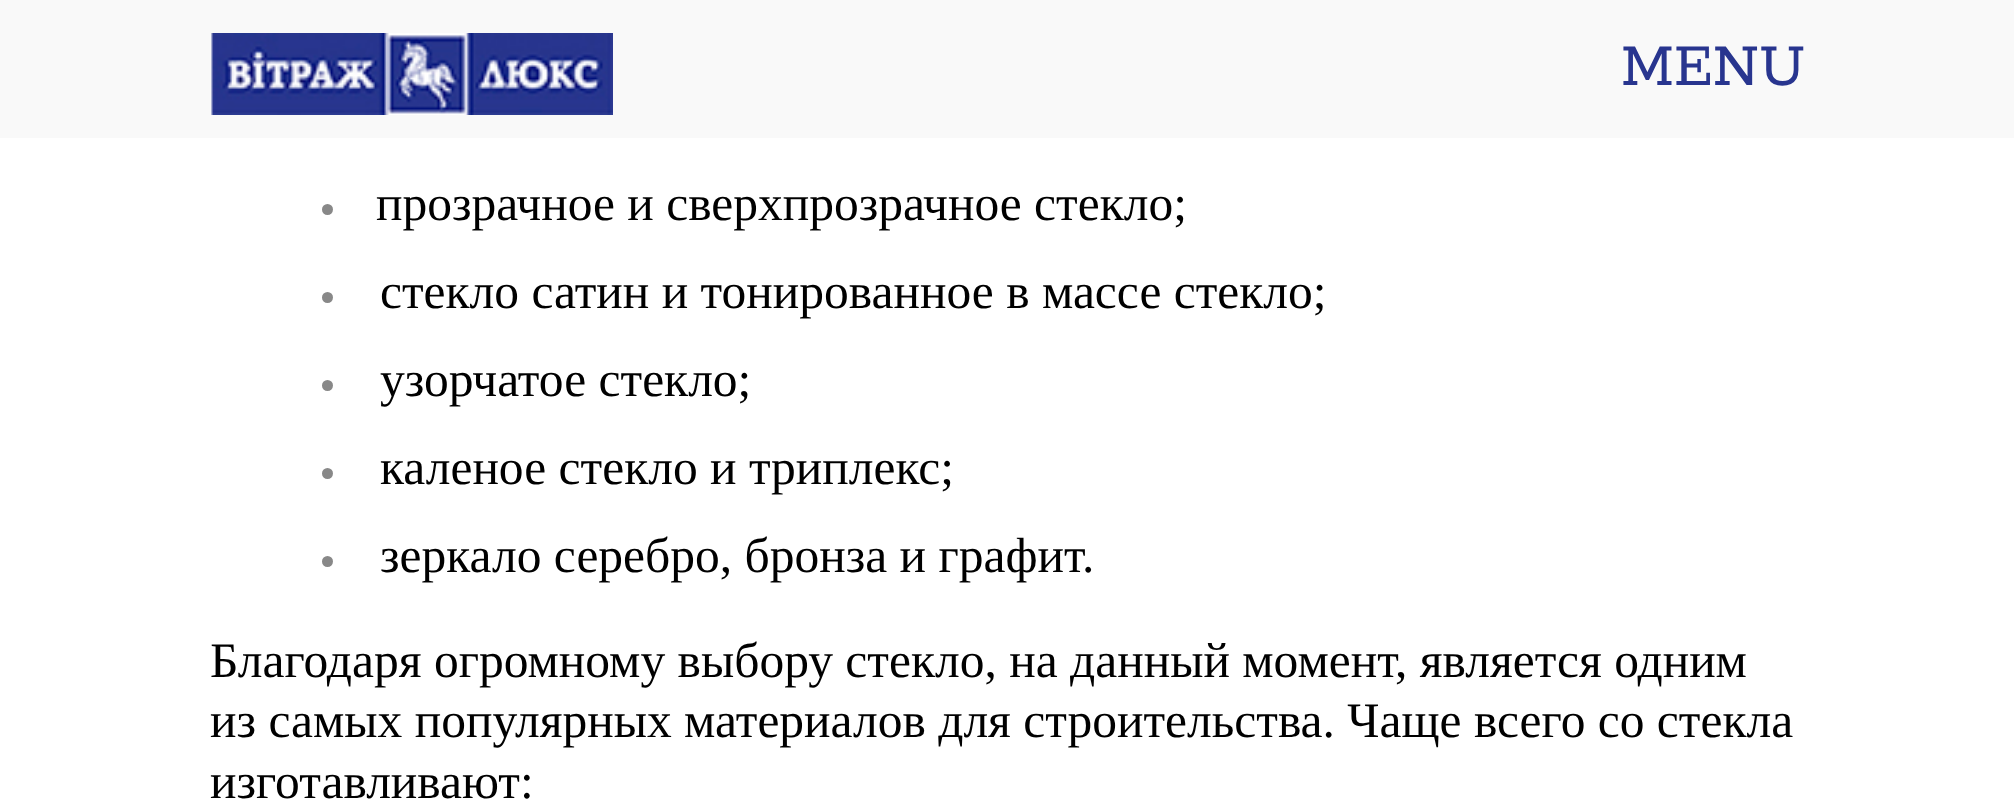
<svg xmlns="http://www.w3.org/2000/svg" width="2014" height="801" viewBox="0 0 2014 801">
  <rect width="100%" height="100%" fill="#ffffff"/>
  <rect x="0" y="0" width="2014" height="138" fill="#f9f9f9"/>
  <image x="211" y="33" width="402" height="82" href="img1.png"/>
  <text x="1621" y="85" font-family="Rokkitt" font-size="66" font-weight="600" fill="#28358f">MENU</text>
  <circle cx="327.5" cy="209.5" r="5.5" fill="#888888"/>
  <text x="376" y="220" font-family="Liberation Serif" font-size="49.5" fill="#000000">прозрачное и сверхпрозрачное стекло;</text>
  <circle cx="327.5" cy="297.5" r="5.5" fill="#888888"/>
  <text x="380" y="308" font-family="Liberation Serif" font-size="49.5" fill="#000000">стекло сатин и тонированное в массе стекло;</text>
  <circle cx="327.5" cy="385.5" r="5.5" fill="#888888"/>
  <text x="380" y="396" font-family="Liberation Serif" font-size="49.5" fill="#000000">узорчатое стекло;</text>
  <circle cx="327.5" cy="473.5" r="5.5" fill="#888888"/>
  <text x="380" y="484" font-family="Liberation Serif" font-size="49.5" fill="#000000">каленое стекло и триплекс;</text>
  <circle cx="327.5" cy="561.5" r="5.5" fill="#888888"/>
  <text x="380" y="572" font-family="Liberation Serif" font-size="49.5" fill="#000000">зеркало серебро, бронза и графит.</text>
  <text x="210" y="677" font-family="Liberation Serif" font-size="49.5" fill="#000000">Благодаря огромному выбору стекло, на данный момент, является одним</text>
  <text x="210" y="737" font-family="Liberation Serif" font-size="49.5" fill="#000000">из самых популярных материалов для строительства. Чаще всего со стекла</text>
  <text x="210" y="798" font-family="Liberation Serif" font-size="49.5" fill="#000000">изготавливают:</text>
</svg>
